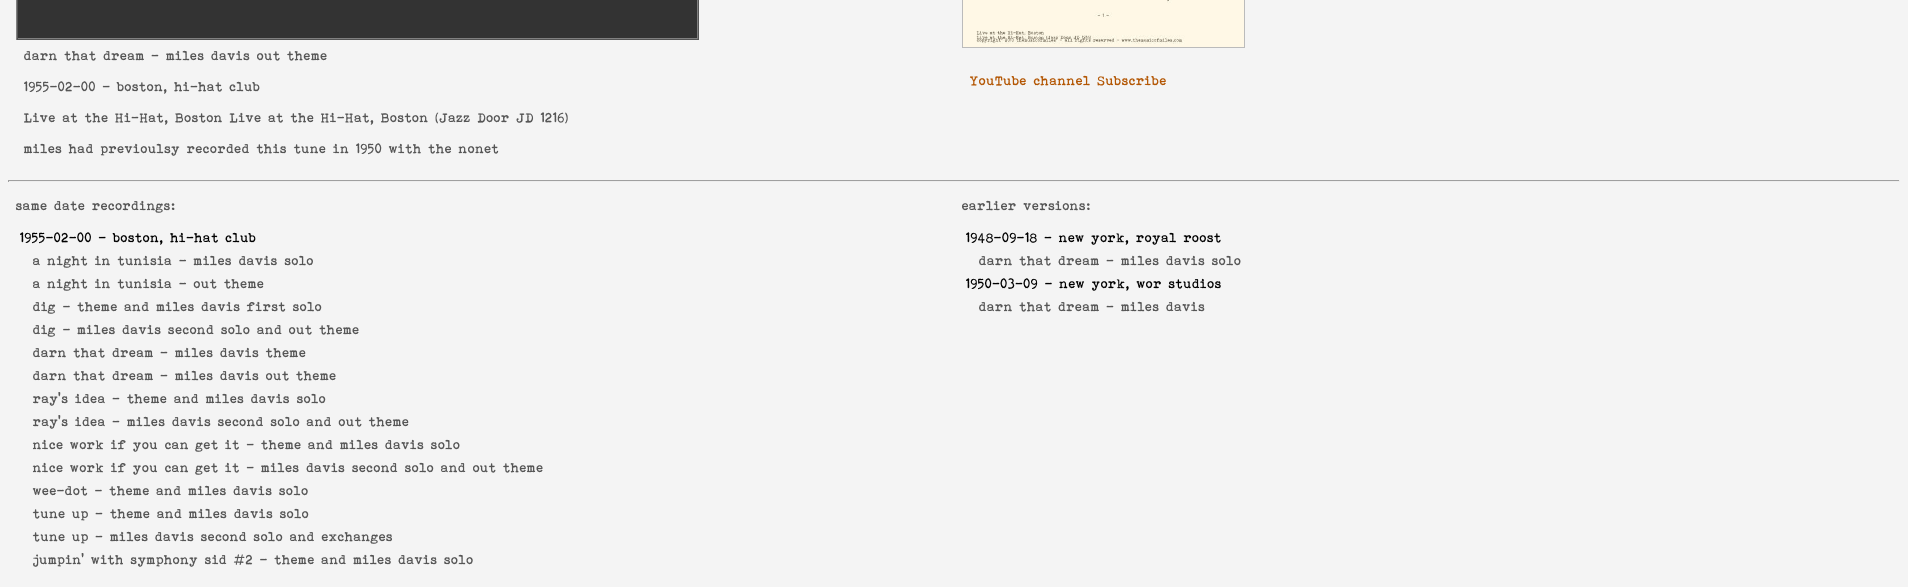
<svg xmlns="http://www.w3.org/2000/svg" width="1908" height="587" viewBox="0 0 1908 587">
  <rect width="100%" height="100%" fill="#f4f4f4"/>
  <rect x="18" y="0" width="679" height="38" fill="#333333"/>
  <rect x="698" y="0" width="1" height="40" fill="#555555"/>
  <rect x="16" y="39" width="683" height="1" fill="#555555"/>
  <rect x="16" y="0" width="1" height="40" fill="#808080"/>
  <rect x="697" y="0" width="1" height="39" fill="#808080"/>
  <rect x="17" y="38" width="681" height="1" fill="#808080"/>
  <rect x="17" y="0" width="1" height="39" fill="#555555"/>
  <text x="24" y="60" font-family="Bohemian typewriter" font-size="13.35" fill="#555555">darn that dream - miles davis out theme</text>
  <text x="24" y="91" font-family="Bohemian typewriter" font-size="13.35" fill="#555555">1955-02-00 - boston, hi-hat club</text>
  <text x="24" y="122" font-family="Bohemian typewriter" font-size="13.35" fill="#555555">Live at the Hi-Hat, Boston Live at the Hi-Hat, Boston (Jazz Door JD 1216)</text>
  <text x="24" y="153" font-family="Bohemian typewriter" font-size="13.35" fill="#555555">miles had previoulsy recorded this tune in 1950 with the nonet</text>
  <rect x="1244" y="0" width="1" height="48" fill="#bbbbbb"/>
  <rect x="962" y="47" width="283" height="1" fill="#bbbbbb"/>
  <rect x="962" y="0" width="1" height="48" fill="#bbbbbb"/>
  <image x="963" y="0" width="281" height="47" href="img1.png"/>
  <text x="970" y="85" font-family="Bohemian typewriter" font-size="13.35" fill="#b35603">YouTube channel Subscribe</text>
  <rect x="8" y="180" width="1892" height="1" fill="#9f9f9f"/>
  <rect x="1899" y="180" width="1" height="2" fill="#eeeeee"/>
  <rect x="8" y="181" width="1892" height="1" fill="#eeeeee"/>
  <rect x="8" y="180" width="1" height="2" fill="#9f9f9f"/>
  <text x="16" y="210" font-family="Bohemian typewriter" font-size="13.35" fill="#555555">same date recordings:</text>
  <text x="20" y="242" font-family="Bohemian typewriter" font-size="13.35" fill="#000000">1955-02-00 - boston, hi-hat club</text>
  <text x="33" y="265" font-family="Bohemian typewriter" font-size="13.35" fill="#555555">a night in tunisia - miles davis solo</text>
  <text x="33" y="288" font-family="Bohemian typewriter" font-size="13.35" fill="#555555">a night in tunisia - out theme</text>
  <text x="33" y="311" font-family="Bohemian typewriter" font-size="13.35" fill="#555555">dig - theme and miles davis first solo</text>
  <text x="33" y="334" font-family="Bohemian typewriter" font-size="13.35" fill="#555555">dig - miles davis second solo and out theme</text>
  <text x="33" y="357" font-family="Bohemian typewriter" font-size="13.35" fill="#555555">darn that dream - miles davis theme</text>
  <text x="33" y="380" font-family="Bohemian typewriter" font-size="13.35" fill="#555555">darn that dream - miles davis out theme</text>
  <text x="33" y="403" font-family="Bohemian typewriter" font-size="13.35" fill="#555555">ray's idea - theme and miles davis solo</text>
  <text x="33" y="426" font-family="Bohemian typewriter" font-size="13.35" fill="#555555">ray's idea - miles davis second solo and out theme</text>
  <text x="33" y="449" font-family="Bohemian typewriter" font-size="13.35" fill="#555555">nice work if you can get it - theme and miles davis solo</text>
  <text x="33" y="472" font-family="Bohemian typewriter" font-size="13.35" fill="#555555">nice work if you can get it - miles davis second solo and out theme</text>
  <text x="33" y="495" font-family="Bohemian typewriter" font-size="13.35" fill="#555555">wee-dot - theme and miles davis solo</text>
  <text x="33" y="518" font-family="Bohemian typewriter" font-size="13.35" fill="#555555">tune up - theme and miles davis solo</text>
  <text x="33" y="541" font-family="Bohemian typewriter" font-size="13.35" fill="#555555">tune up - miles davis second solo and exchanges</text>
  <text x="33" y="564" font-family="Bohemian typewriter" font-size="13.35" fill="#555555">jumpin' with symphony sid #2 - theme and miles davis solo</text>
  <text x="962" y="210" font-family="Bohemian typewriter" font-size="13.35" fill="#555555">earlier versions:</text>
  <text x="966" y="242" font-family="Bohemian typewriter" font-size="13.35" fill="#000000">1948-09-18 - new york, royal roost</text>
  <text x="979" y="265" font-family="Bohemian typewriter" font-size="13.35" fill="#555555">darn that dream - miles davis solo</text>
  <text x="966" y="288" font-family="Bohemian typewriter" font-size="13.35" fill="#000000">1950-03-09 - new york, wor studios</text>
  <text x="979" y="311" font-family="Bohemian typewriter" font-size="13.35" fill="#555555">darn that dream - miles davis</text>
</svg>
